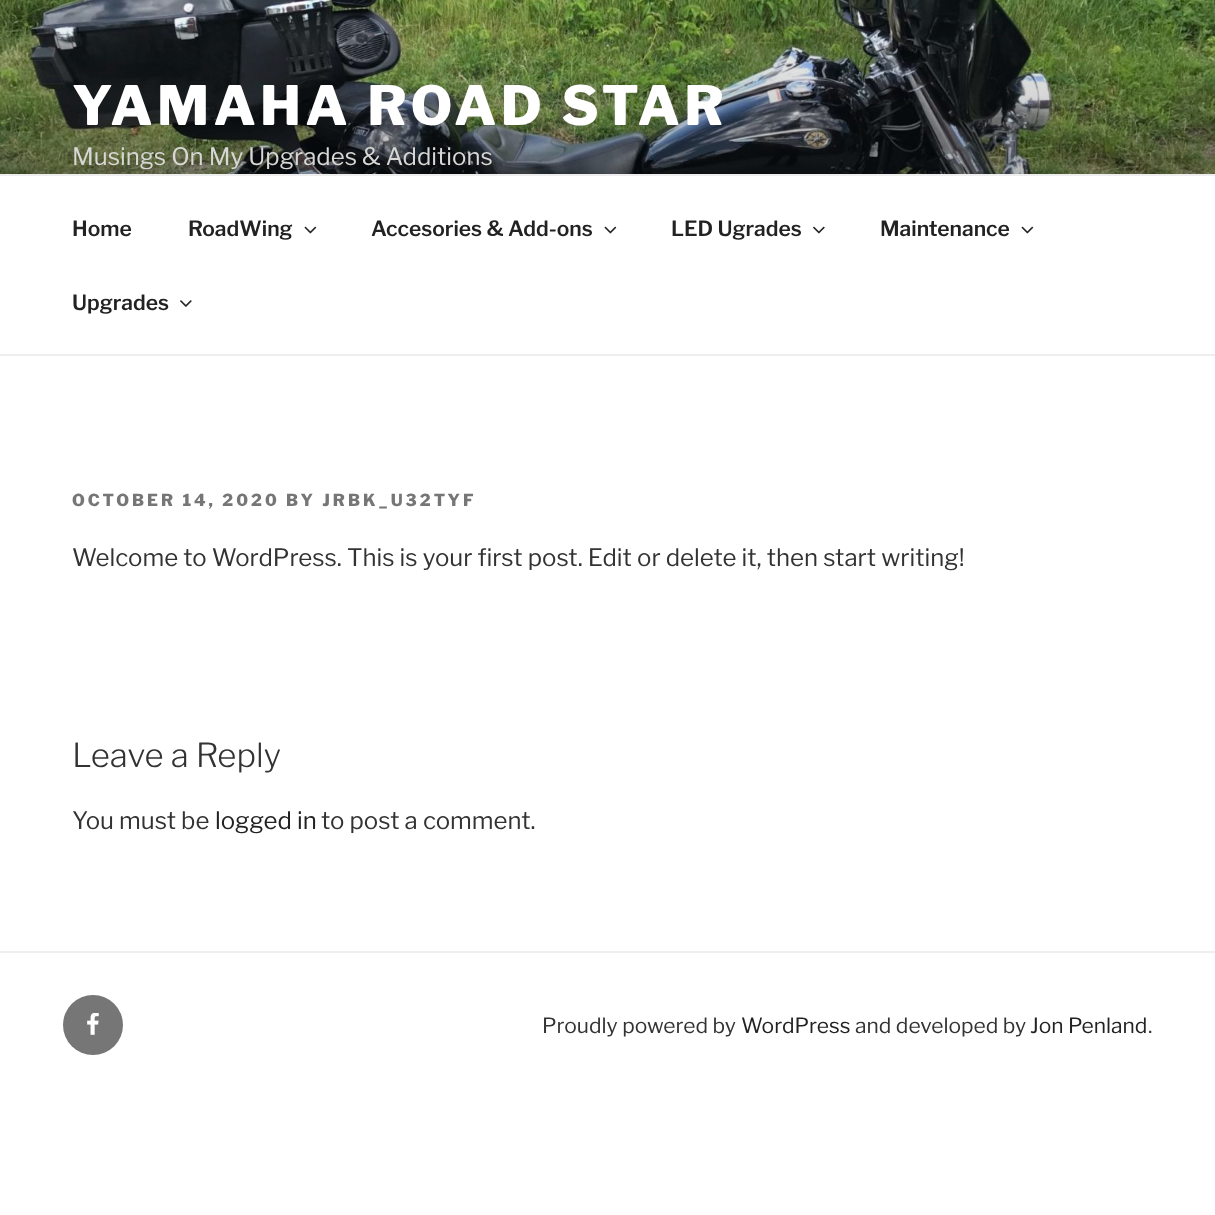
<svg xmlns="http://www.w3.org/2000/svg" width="1215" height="1215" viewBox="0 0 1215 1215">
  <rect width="100%" height="100%" fill="#ffffff"/>
  <image x="0" y="0" width="1215" height="174" href="img1.png"/>
  <text x="72" y="125" font-family="Libre Franklin" font-size="54" font-weight="100" letter-spacing="4.3" fill="#ffffff">YAMAHA ROAD STAR</text>
  <text x="72" y="165" font-family="'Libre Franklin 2'" font-size="24" font-weight="100" fill="#d7d8d5">Musings On My Upgrades &amp; Additions</text>
  <rect x="0" y="174" width="1215" height="2" fill="#eeeeee"/>
  <rect x="0" y="354" width="1215" height="2" fill="#eeeeee"/>
  <text x="72" y="236" font-family="'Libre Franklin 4'" font-size="21" font-weight="100" fill="#222222">Home</text>
  <text x="188" y="236" font-family="'Libre Franklin 4'" font-size="21" font-weight="100" fill="#222222">RoadWing</text>
  <image x="304" y="226" width="13" height="8" href="img2.png"/>
  <text x="371" y="236" font-family="'Libre Franklin 4'" font-size="21" font-weight="100" fill="#222222">Accesories &amp; Add-ons</text>
  <image x="604" y="226" width="13" height="8" href="img2.png"/>
  <text x="671" y="236" font-family="'Libre Franklin 4'" font-size="21" font-weight="100" fill="#222222">LED Ugrades</text>
  <image x="813" y="226" width="12" height="8" href="img3.png"/>
  <text x="880" y="236" font-family="'Libre Franklin 4'" font-size="21" font-weight="100" fill="#222222">Maintenance</text>
  <image x="1021" y="226" width="13" height="8" href="img2.png"/>
  <text x="72" y="310" font-family="'Libre Franklin 4'" font-size="21" font-weight="100" fill="#222222">Upgrades</text>
  <image x="180" y="300" width="12" height="7" href="img4.png"/>
  <text x="72" y="506" font-family="Libre Franklin" font-size="16.5" font-weight="100" letter-spacing="3" fill="#767676">OCTOBER 14, 2020 BY JRBK_U32TYF</text>
  <text x="72" y="566" font-family="'Libre Franklin 2'" font-size="24" font-weight="100" fill="#333333">Welcome to WordPress. This is your first post. Edit or delete it, then start writing!</text>
  <text x="72" y="767" font-family="'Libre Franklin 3'" font-size="33" font-weight="100" fill="#333333">Leave a Reply</text>
  <text x="72" y="829" font-family="'Libre Franklin 2'" font-size="24" font-weight="100" fill="#333333">You must be</text>
  <text x="215" y="829" font-family="'Libre Franklin 2'" font-size="24" font-weight="100" fill="#222222">logged in</text>
  <text x="321" y="829" font-family="'Libre Franklin 2'" font-size="24" font-weight="100" fill="#333333">to post a comment.</text>
  <rect x="0" y="951" width="1215" height="2" fill="#eeeeee"/>
  <circle cx="93" cy="1025" r="30" fill="#767676"/>
  <image x="87" y="1013" width="12" height="22" href="img5.png"/>
  <text x="542" y="1033" font-family="'Libre Franklin 2'" font-size="21" font-weight="100" fill="#333333">Proudly powered by</text>
  <text x="741" y="1033" font-family="'Libre Franklin 2'" font-size="21" font-weight="100" fill="#222222">WordPress</text>
  <text x="855" y="1033" font-family="'Libre Franklin 2'" font-size="21" font-weight="100" fill="#333333">and developed by</text>
  <text x="1030" y="1033" font-family="'Libre Franklin 2'" font-size="21" font-weight="100" fill="#222222">Jon Penland</text>
  <text x="1148" y="1033" font-family="'Libre Franklin 2'" font-size="21" font-weight="100" fill="#333333">.</text>
</svg>
